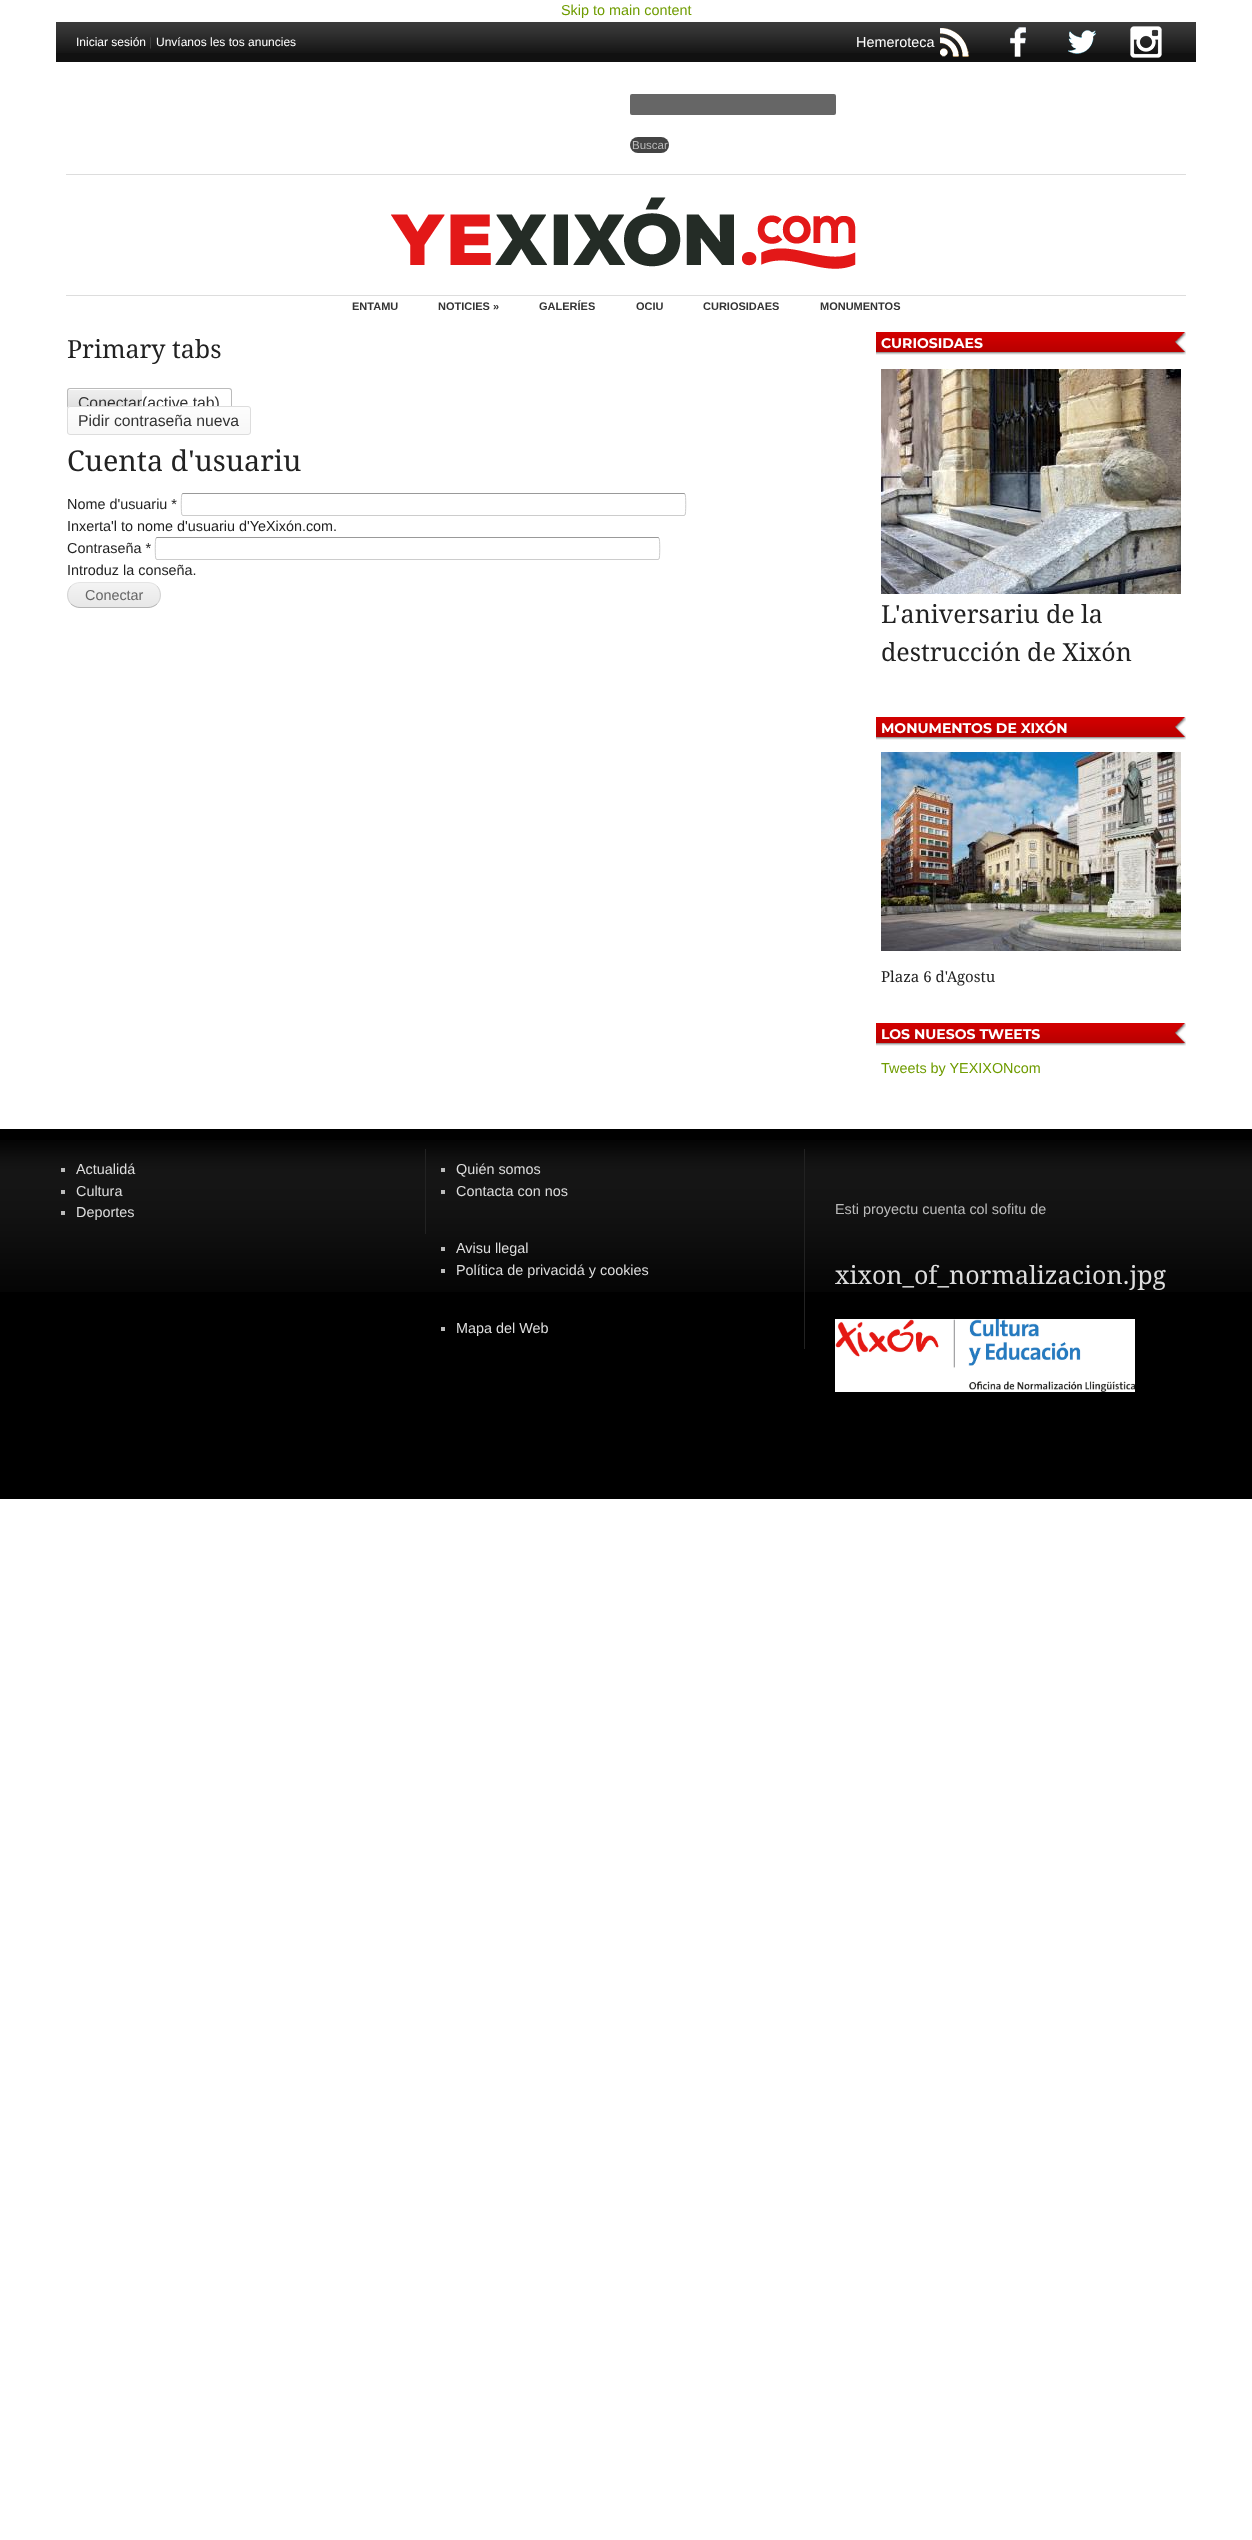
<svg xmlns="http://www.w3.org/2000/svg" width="1252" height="2540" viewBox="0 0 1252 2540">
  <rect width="100%" height="100%" fill="#ffffff"/>
  <text x="561" y="15" font-family="Liberation Sans" font-size="14.4" fill="#6f9c00">Skip to main content</text>
  <rect x="56" y="53" width="1140" height="9" fill="#111111"/>
  <image x="56" y="22" width="1140" height="31" href="img1.png"/>
  <text x="76" y="46" font-family="Liberation Sans" font-size="12" fill="#ffffff">Iniciar sesión</text>
  <text x="149" y="46" font-family="Liberation Sans" font-size="12" fill="#444444">|</text>
  <text x="156" y="46" font-family="Liberation Sans" font-size="12" fill="#ffffff">Unvíanos les tos anuncies</text>
  <text x="856" y="47" font-family="Liberation Sans" font-size="14.4" fill="#ffffff">Hemeroteca</text>
  <image x="940" y="28" width="29" height="29" href="img2.png"/>
  <image x="1010" y="27" width="16" height="30" href="img3.png"/>
  <image x="1068" y="30" width="28" height="24" href="img4.png"/>
  <image x="1130" y="26" width="32" height="32" href="img5.png"/>
  <rect x="630" y="94" width="206" height="21" rx="2" fill="#666666"/>
  <rect x="630" y="137" width="39" height="16" rx="8" fill="#444444"/>
  <text x="632" y="149" font-family="Liberation Sans" font-size="11.5" fill="#bbbbbb">Buscar</text>
  <rect x="66" y="174" width="1120" height="1" fill="#dddddd"/>
  <image x="391" y="197" width="465" height="72" href="img6.png"/>
  <rect x="66" y="295" width="1120" height="1" fill="#dddddd"/>
  <text x="352" y="310" font-family="Liberation Sans" font-size="11" font-weight="bold" fill="#333333">ENTAMU</text>
  <text x="438" y="310" font-family="Liberation Sans" font-size="11" font-weight="bold" fill="#333333">NOTICIES »</text>
  <text x="539" y="310" font-family="Liberation Sans" font-size="11" font-weight="bold" fill="#333333">GALERÍES</text>
  <text x="636" y="310" font-family="Liberation Sans" font-size="11" font-weight="bold" fill="#333333">OCIU</text>
  <text x="703" y="310" font-family="Liberation Sans" font-size="11" font-weight="bold" fill="#333333">CURIOSIDAES</text>
  <text x="820" y="310" font-family="Liberation Sans" font-size="11" font-weight="bold" fill="#333333">MONUMENTOS</text>
  <text x="67" y="358" font-family="Droid Serif" font-size="25" fill="#222222">Primary tabs</text>
  <image x="67" y="390" width="165" height="17" href="img7.png"/>
  <path d="M70 388H142V417H70C68 417 67 416 67 414V391C67 389 68 388 70 388ZM70 389H142V416H70C69 416 68 415 68 414V391C68 390 69 389 70 389Z" fill="#bbbbbb" fill-rule="evenodd"/>
  <path d="M142 388H229C230.5 388 232 389.5 232 391V414C232 415.5 230.5 417 229 417H142Z" fill="#ffffff"/>
  <path d="M142 388H229C231 388 232 389 232 391V414C232 416 231 417 229 417H142ZM142 389H229C230 389 231 390 231 391V414C231 415 230 416 229 416H142Z" fill="#bbbbbb" fill-rule="evenodd"/>
  <text x="78" y="408" font-family="Liberation Sans" font-size="15.75" fill="#333333">Conectar(active tab)</text>
  <image x="67" y="406" width="184" height="28" href="img8.png"/>
  <rect x="67.5" y="406.5" width="183" height="28" rx="2.5" fill="none" stroke="#dddddd"/>
  <text x="78" y="426" font-family="Liberation Sans" font-size="15.75" fill="#333333">Pidir contraseña nueva</text>
  <text x="67" y="471" font-family="Droid Serif" font-size="28.75" fill="#222222">Cuenta d'usuariu</text>
  <text x="67" y="509" font-family="Liberation Sans" font-size="14.4" fill="#222222">Nome d'usuariu *</text>
  <path d="M182 494L183 493.5H684L685 494" fill="none" stroke="#999999"/>
  <path d="M685 494C686 494.5 686 514.5 685 515L684 515.5H183L182 515C181 514.5 181 494.5 182 494" fill="none" stroke="#cccccc"/>
  <text x="67" y="531" font-family="Liberation Sans" font-size="14.4" fill="#222222">Inxerta'l to nome d'usuariu d'YeXixón.com.</text>
  <text x="67" y="553" font-family="Liberation Sans" font-size="14.4" fill="#222222">Contraseña *</text>
  <path d="M156 538L157 537.5H658L659 538" fill="none" stroke="#999999"/>
  <path d="M659 538C660 538.5 660 558.5 659 559L658 559.5H157L156 559C155 558.5 155 538.5 156 538" fill="none" stroke="#cccccc"/>
  <text x="67" y="575" font-family="Liberation Sans" font-size="14.4" fill="#222222">Introduz la conseña.</text>
  <image x="67" y="583" width="94" height="25" href="img9.png"/>
  <path d="M71 586C73.5 584 76.5 582.5 80 582.5H148C151.5 582.5 154.5 584 157 586" fill="none" stroke="#e4e4e4"/>
  <path d="M157 586C161.5 591 161.5 599 157 604" fill="none" stroke="#d2d2d2"/>
  <path d="M157 604C154.5 606 151.5 607.5 148 607.5H80C76.5 607.5 73.5 606 71 604" fill="none" stroke="#b4b4b4"/>
  <path d="M71 604C66.5 599 66.5 591 71 586" fill="none" stroke="#d2d2d2"/>
  <text x="85" y="600" font-family="Liberation Sans" font-size="14.4" fill="#666666">Conectar</text>
  <image x="876" y="332" width="310" height="23" href="img10.png"/>
  <text x="881" y="348" font-family="Montserrat" font-size="14" font-weight="bold" fill="#ffffff">CURIOSIDAES</text>
  <image x="881" y="369" width="300" height="225" href="img11.png"/>
  <text x="881" y="623" font-family="Droid Serif" font-size="25" fill="#222222">L'aniversariu de la</text>
  <text x="881" y="661" font-family="Droid Serif" font-size="25" fill="#222222">destrucción de Xixón</text>
  <image x="876" y="717" width="310" height="23" href="img10.png"/>
  <text x="881" y="733" font-family="Montserrat" font-size="14" font-weight="bold" fill="#ffffff">MONUMENTOS DE XIXÓN</text>
  <image x="881" y="752" width="300" height="199" href="img12.png"/>
  <text x="881" y="982" font-family="Droid Serif" font-size="15" fill="#222222">Plaza 6 d'Agostu</text>
  <image x="876" y="1023" width="310" height="23" href="img10.png"/>
  <text x="881" y="1039" font-family="Montserrat" font-size="14" font-weight="bold" fill="#ffffff">LOS NUESOS TWEETS</text>
  <text x="881" y="1073" font-family="Liberation Sans" font-size="14.4" fill="#6f9c00">Tweets by YEXIXONcom</text>
  <rect x="0" y="1129" width="1252" height="370" fill="#000000"/>
  <image x="0" y="1140" width="1252" height="152" href="img13.png"/>
  <rect x="425" y="1149" width="1" height="85" fill="#222222"/>
  <rect x="61" y="1168" width="4" height="4" fill="#bbbbbb"/>
  <text x="76" y="1174" font-family="Liberation Sans" font-size="14.4" fill="#dddddd">Actualidá</text>
  <rect x="61" y="1190" width="4" height="4" fill="#bbbbbb"/>
  <text x="76" y="1196" font-family="Liberation Sans" font-size="14.4" fill="#dddddd">Cultura</text>
  <rect x="61" y="1211" width="4" height="4" fill="#bbbbbb"/>
  <text x="76" y="1217" font-family="Liberation Sans" font-size="14.4" fill="#dddddd">Deportes</text>
  <rect x="804" y="1149" width="1" height="200" fill="#222222"/>
  <rect x="441" y="1168" width="4" height="4" fill="#bbbbbb"/>
  <text x="456" y="1174" font-family="Liberation Sans" font-size="14.4" fill="#dddddd">Quién somos</text>
  <rect x="441" y="1190" width="4" height="4" fill="#bbbbbb"/>
  <text x="456" y="1196" font-family="Liberation Sans" font-size="14.4" fill="#dddddd">Contacta con nos</text>
  <rect x="441" y="1247" width="4" height="4" fill="#bbbbbb"/>
  <text x="456" y="1253" font-family="Liberation Sans" font-size="14.4" fill="#dddddd">Avisu llegal</text>
  <rect x="441" y="1269" width="4" height="4" fill="#bbbbbb"/>
  <text x="456" y="1275" font-family="Liberation Sans" font-size="14.4" fill="#dddddd">Política de privacidá y cookies</text>
  <rect x="441" y="1327" width="4" height="4" fill="#bbbbbb"/>
  <text x="456" y="1333" font-family="Liberation Sans" font-size="14.4" fill="#dddddd">Mapa del Web</text>
  <text x="835" y="1214" font-family="Liberation Sans" font-size="14.4" fill="#bbbbbb">Esti proyectu cuenta col sofitu de</text>
  <text x="835" y="1284" font-family="Droid Serif" font-size="25" fill="#dddddd">xixon_of_normalizacion.jpg</text>
  <image x="835" y="1319" width="300" height="73" href="img14.png"/>
</svg>
